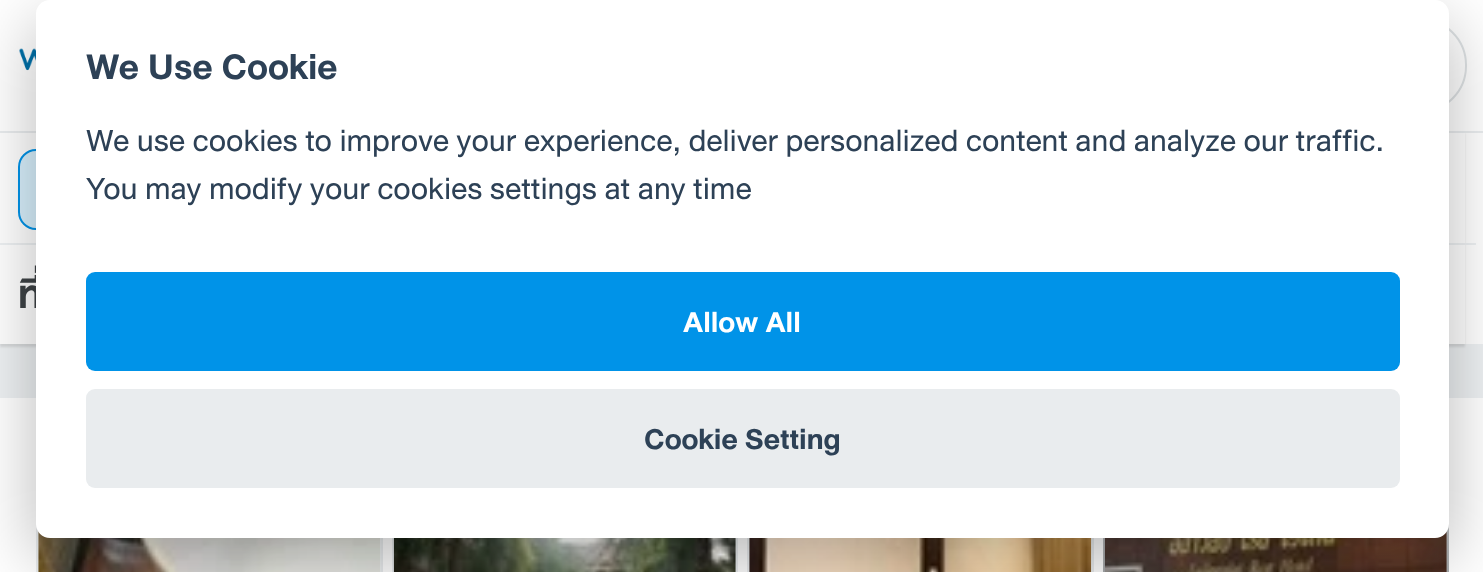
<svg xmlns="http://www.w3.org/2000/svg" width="1483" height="572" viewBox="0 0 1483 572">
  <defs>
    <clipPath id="clip1"><path d="M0 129H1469V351H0ZM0 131H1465V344H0Z" clip-rule="evenodd"/></clipPath>
    <filter id="blur1" x="-50%" y="-200%" width="200%" height="500%"><feGaussianBlur stdDeviation="1"/></filter>
    <clipPath id="clip2"><rect x="18" y="263" width="1429" height="63"/></clipPath>
    <linearGradient id="g1" gradientUnits="userSpaceOnUse" x1="1276" y1="434" x2="1276" y2="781"><stop offset="0" stop-color="#000000" stop-opacity="0"/><stop offset="0.99" stop-color="#000000" stop-opacity="0.7"/></linearGradient>
    <filter id="blur2" x="-50%" y="-200%" width="200%" height="500%"><feGaussianBlur stdDeviation="34"/></filter>
  </defs>
  <rect width="100%" height="100%" fill="#edf0f2"/>
  <rect x="0" y="133" width="1483" height="211" fill="#ffffff"/>
  <g clip-path="url(#clip1)">
    <rect x="0" y="133" width="1465" height="214" fill="#000000" fill-opacity="0.1" filter="url(#blur1)"/>
  </g>
  <rect x="0" y="0" width="1483" height="131" fill="#ffffff"/>
  <rect x="0" y="131" width="1483" height="2" fill="#e9ecee"/>
  <image x="19" y="48" width="17" height="23" href="img1.png"/>
  <rect x="1374" y="19" width="92" height="93" rx="46" fill="none" stroke="#dee2e4" stroke-width="2"/>
  <rect x="19" y="150" width="252" height="79" rx="17" fill="#d8f0fd" stroke="#0093e8" stroke-width="2"/>
  <rect x="0" y="243" width="1476" height="2" fill="#edf0f2"/>
  <g clip-path="url(#clip2)">
    <text x="18" y="308" font-family="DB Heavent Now" font-size="40" font-weight="bold" fill="#3d4245">ที่</text>
  </g>
  <rect x="0" y="398" width="1483" height="174" fill="#ffffff"/>
  <rect x="38" y="531" width="343" height="41" fill="#edf0f2"/>
  <rect x="37" y="435" width="345" height="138" fill="none" stroke="#e9ecee" stroke-width="2"/>
  <image x="38" y="531" width="343" height="41" href="img2.png"/>
  <rect x="735" y="538" width="1" height="34" fill="#edf0f2"/>
  <rect x="393" y="435" width="344" height="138" fill="none" stroke="#e9ecee" stroke-width="2"/>
  <image x="393" y="538" width="343" height="34" href="img3.png"/>
  <rect x="749" y="538" width="343" height="34" fill="#edf0f2"/>
  <rect x="748" y="435" width="345" height="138" fill="none" stroke="#e9ecee" stroke-width="2"/>
  <image x="749" y="538" width="343" height="34" href="img4.png"/>
  <rect x="1446" y="531" width="1" height="41" fill="#edf0f2"/>
  <rect x="1104" y="435" width="344" height="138" fill="none" stroke="#e9ecee" stroke-width="2"/>
  <image x="1104" y="531" width="343" height="41" href="img5.png"/>
  <rect x="1103" y="524" width="346" height="48" fill="url(#g1)"/>
  <rect x="36" y="23" width="1413" height="537" rx="14" fill="#020203" fill-opacity="0.28" filter="url(#blur2)"/>
  <rect x="36" y="0" width="1413" height="538" rx="14" fill="#ffffff"/>
  <text x="86" y="79" font-family="DB Heavent Now" font-size="37.75" font-weight="bold" fill="#2d4156">We Use Cookie</text>
  <text x="86" y="151" font-family="DB Heavent Now" font-size="32.4" fill="#2d4156">We use cookies to improve your experience, deliver personalized content and analyze our traffic.</text>
  <text x="86" y="199" font-family="DB Heavent Now" font-size="32.4" fill="#2d4156">You may modify your cookies settings at any time</text>
  <rect x="86" y="272" width="1314" height="99" rx="9" fill="#0093e8"/>
  <text x="683" y="332" font-family="DB Heavent Now" font-size="30.5" font-weight="bold" fill="#ffffff">Allow All</text>
  <rect x="86" y="389" width="1314" height="99" rx="9" fill="#e9ecee"/>
  <text x="644" y="449" font-family="DB Heavent Now" font-size="30.5" font-weight="bold" fill="#2d4156">Cookie Setting</text>
</svg>
